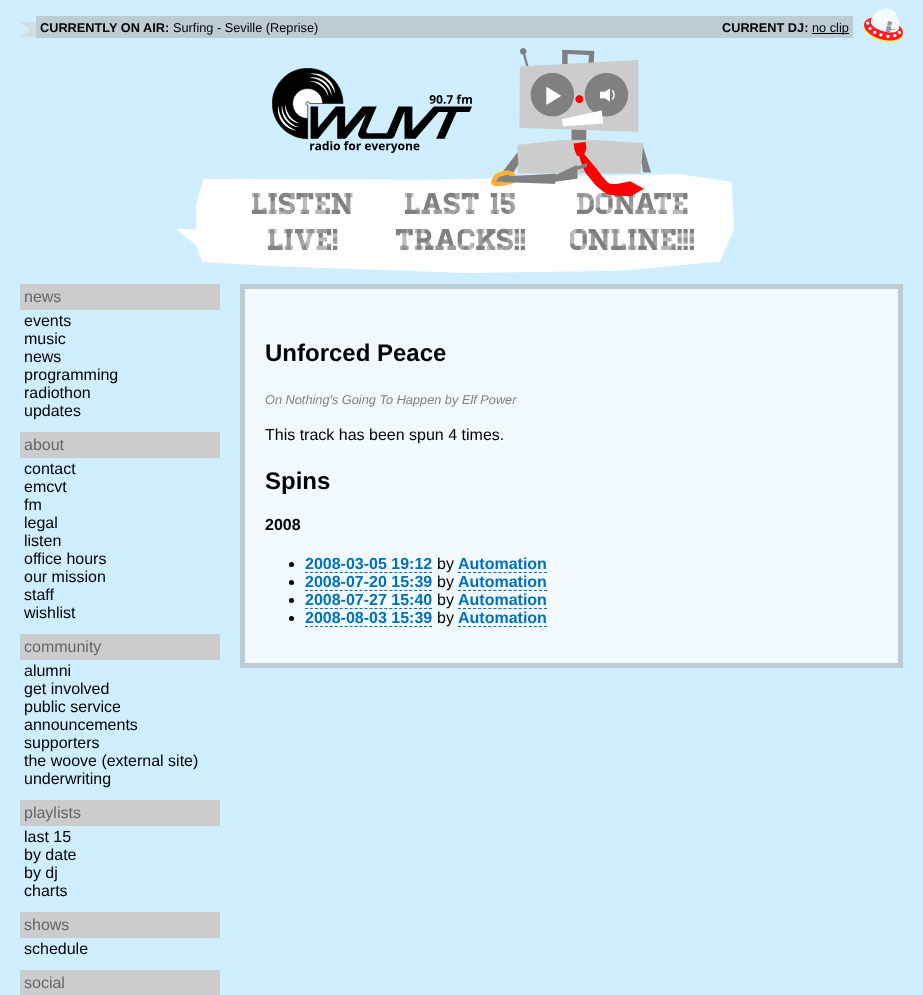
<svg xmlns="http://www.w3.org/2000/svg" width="923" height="995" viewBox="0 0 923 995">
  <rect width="100%" height="100%" fill="#cfeeff"/>
  <image x="20" y="8" width="883" height="34" href="img1.png"/>
  <rect x="36" y="16" width="817" height="22" fill="#bcccd3"/>
  <text x="40" y="32" font-family="Liberation Sans" font-size="12.75" font-weight="bold" fill="#000000">CURRENTLY ON AIR:</text>
  <text x="173" y="32" font-family="Liberation Sans" font-size="12.75" fill="#000000">Surfing - Seville (Reprise)</text>
  <text x="722" y="32" font-family="Liberation Sans" font-size="12.75" font-weight="bold" fill="#000000">CURRENT DJ:</text>
  <rect x="812" y="33" width="37" height="1" fill="#000000"/>
  <text x="812" y="32" font-family="Liberation Sans" font-size="12.75" fill="#000000">no clip</text>
  <image x="272" y="68" width="200" height="85" href="img2.png"/>
  <image x="176" y="174" width="558" height="99" href="img6.png"/>
  <text x="405" y="214" font-family="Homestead" font-size="30" fill="#808080">LAST 15</text>
  <text x="577" y="214" font-family="Homestead" font-size="30" fill="#808080">DONATE</text>
  <image x="491" y="48" width="160" height="148" href="img3.png"/>
  <image x="546" y="87" width="15" height="18" href="img4.png"/>
  <image x="600" y="88" width="15" height="14" href="img5.png"/>
  <text x="252" y="214" font-family="Homestead" font-size="30" fill="#808080">LISTEN</text>
  <text x="268" y="250" font-family="Homestead" font-size="30" fill="#808080">LIVE!</text>
  <text x="396" y="250" font-family="Homestead" font-size="30" fill="#808080">TRACKS!!</text>
  <text x="570" y="250" font-family="Homestead" font-size="30" fill="#808080">ONLINE!!!</text>
  <rect x="20" y="284" width="200" height="26" fill="#cccccc"/>
  <text x="24" y="302" font-family="Liberation Sans" font-size="16" fill="#666666">news</text>
  <text x="24" y="326" font-family="Liberation Sans" font-size="16" fill="#000000">events</text>
  <text x="24" y="344" font-family="Liberation Sans" font-size="16" fill="#000000">music</text>
  <text x="24" y="362" font-family="Liberation Sans" font-size="16" fill="#000000">news</text>
  <text x="24" y="380" font-family="Liberation Sans" font-size="16" fill="#000000">programming</text>
  <text x="24" y="398" font-family="Liberation Sans" font-size="16" fill="#000000">radiothon</text>
  <text x="24" y="416" font-family="Liberation Sans" font-size="16" fill="#000000">updates</text>
  <rect x="20" y="432" width="200" height="26" fill="#cccccc"/>
  <text x="24" y="450" font-family="Liberation Sans" font-size="16" fill="#666666">about</text>
  <text x="24" y="474" font-family="Liberation Sans" font-size="16" fill="#000000">contact</text>
  <text x="24" y="492" font-family="Liberation Sans" font-size="16" fill="#000000">emcvt</text>
  <text x="24" y="510" font-family="Liberation Sans" font-size="16" fill="#000000">fm</text>
  <text x="24" y="528" font-family="Liberation Sans" font-size="16" fill="#000000">legal</text>
  <text x="24" y="546" font-family="Liberation Sans" font-size="16" fill="#000000">listen</text>
  <text x="24" y="564" font-family="Liberation Sans" font-size="16" fill="#000000">office hours</text>
  <text x="24" y="582" font-family="Liberation Sans" font-size="16" fill="#000000">our mission</text>
  <text x="24" y="600" font-family="Liberation Sans" font-size="16" fill="#000000">staff</text>
  <text x="24" y="618" font-family="Liberation Sans" font-size="16" fill="#000000">wishlist</text>
  <rect x="20" y="634" width="200" height="26" fill="#cccccc"/>
  <text x="24" y="652" font-family="Liberation Sans" font-size="16" fill="#666666">community</text>
  <text x="24" y="676" font-family="Liberation Sans" font-size="16" fill="#000000">alumni</text>
  <text x="24" y="694" font-family="Liberation Sans" font-size="16" fill="#000000">get involved</text>
  <text x="24" y="712" font-family="Liberation Sans" font-size="16" fill="#000000">public service</text>
  <text x="24" y="730" font-family="Liberation Sans" font-size="16" fill="#000000">announcements</text>
  <text x="24" y="748" font-family="Liberation Sans" font-size="16" fill="#000000">supporters</text>
  <text x="24" y="766" font-family="Liberation Sans" font-size="16" fill="#000000">the woove (external site)</text>
  <text x="24" y="784" font-family="Liberation Sans" font-size="16" fill="#000000">underwriting</text>
  <rect x="20" y="800" width="200" height="26" fill="#cccccc"/>
  <text x="24" y="818" font-family="Liberation Sans" font-size="16" fill="#666666">playlists</text>
  <text x="24" y="842" font-family="Liberation Sans" font-size="16" fill="#000000">last 15</text>
  <text x="24" y="860" font-family="Liberation Sans" font-size="16" fill="#000000">by date</text>
  <text x="24" y="878" font-family="Liberation Sans" font-size="16" fill="#000000">by dj</text>
  <text x="24" y="896" font-family="Liberation Sans" font-size="16" fill="#000000">charts</text>
  <rect x="20" y="912" width="200" height="26" fill="#cccccc"/>
  <text x="24" y="930" font-family="Liberation Sans" font-size="16" fill="#666666">shows</text>
  <text x="24" y="954" font-family="Liberation Sans" font-size="16" fill="#000000">schedule</text>
  <rect x="20" y="970" width="200" height="25" fill="#cccccc"/>
  <text x="24" y="988" font-family="Liberation Sans" font-size="16" fill="#666666">social</text>
  <rect x="242.5" y="286.5" width="658" height="379" fill="#f2faff" stroke="#bcccd3" stroke-width="5"/>
  <text x="265" y="361" font-family="Liberation Sans" font-size="24" font-weight="bold" fill="#000000">Unforced Peace</text>
  <text x="265" y="404" font-family="Liberation Sans" font-size="12.75" font-style="italic" fill="#808080">On Nothing's Going To Happen by Elf Power</text>
  <text x="265" y="440" font-family="Liberation Sans" font-size="16" fill="#000000">This track has been spun 4 times.</text>
  <text x="265" y="489" font-family="Liberation Sans" font-size="24" font-weight="bold" fill="#000000">Spins</text>
  <text x="265" y="530" font-family="Liberation Sans" font-size="16" font-weight="bold" fill="#000000">2008</text>
  <circle cx="291.5" cy="564.5" r="2.5" fill="#000000"/>
  <text x="305" y="569" font-family="Liberation Sans" font-size="16" font-weight="bold" fill="#0071bc">2008-03-05 19:12</text>
  <path d="M305 572.5H432" fill="none" stroke="#0071bc" stroke-dasharray="3 1.96"/>
  <text x="437" y="569" font-family="Liberation Sans" font-size="16" fill="#000000">by</text>
  <text x="458" y="569" font-family="Liberation Sans" font-size="16" font-weight="bold" fill="#0071bc">Automation</text>
  <path d="M458 572.5H547" fill="none" stroke="#0071bc" stroke-dasharray="3 2.06"/>
  <circle cx="291.5" cy="582.5" r="2.5" fill="#000000"/>
  <text x="305" y="587" font-family="Liberation Sans" font-size="16" font-weight="bold" fill="#0071bc">2008-07-20 15:39</text>
  <path d="M305 590.5H432" fill="none" stroke="#0071bc" stroke-dasharray="3 1.96"/>
  <text x="437" y="587" font-family="Liberation Sans" font-size="16" fill="#000000">by</text>
  <text x="458" y="587" font-family="Liberation Sans" font-size="16" font-weight="bold" fill="#0071bc">Automation</text>
  <path d="M458 590.5H547" fill="none" stroke="#0071bc" stroke-dasharray="3 2.06"/>
  <circle cx="291.5" cy="600.5" r="2.5" fill="#000000"/>
  <text x="305" y="605" font-family="Liberation Sans" font-size="16" font-weight="bold" fill="#0071bc">2008-07-27 15:40</text>
  <path d="M305 608.5H432" fill="none" stroke="#0071bc" stroke-dasharray="3 1.96"/>
  <text x="437" y="605" font-family="Liberation Sans" font-size="16" fill="#000000">by</text>
  <text x="458" y="605" font-family="Liberation Sans" font-size="16" font-weight="bold" fill="#0071bc">Automation</text>
  <path d="M458 608.5H547" fill="none" stroke="#0071bc" stroke-dasharray="3 2.06"/>
  <circle cx="291.5" cy="618.5" r="2.5" fill="#000000"/>
  <text x="305" y="623" font-family="Liberation Sans" font-size="16" font-weight="bold" fill="#0071bc">2008-08-03 15:39</text>
  <path d="M305 626.5H432" fill="none" stroke="#0071bc" stroke-dasharray="3 1.96"/>
  <text x="437" y="623" font-family="Liberation Sans" font-size="16" fill="#000000">by</text>
  <text x="458" y="623" font-family="Liberation Sans" font-size="16" font-weight="bold" fill="#0071bc">Automation</text>
  <path d="M458 626.5H547" fill="none" stroke="#0071bc" stroke-dasharray="3 2.06"/>
</svg>
